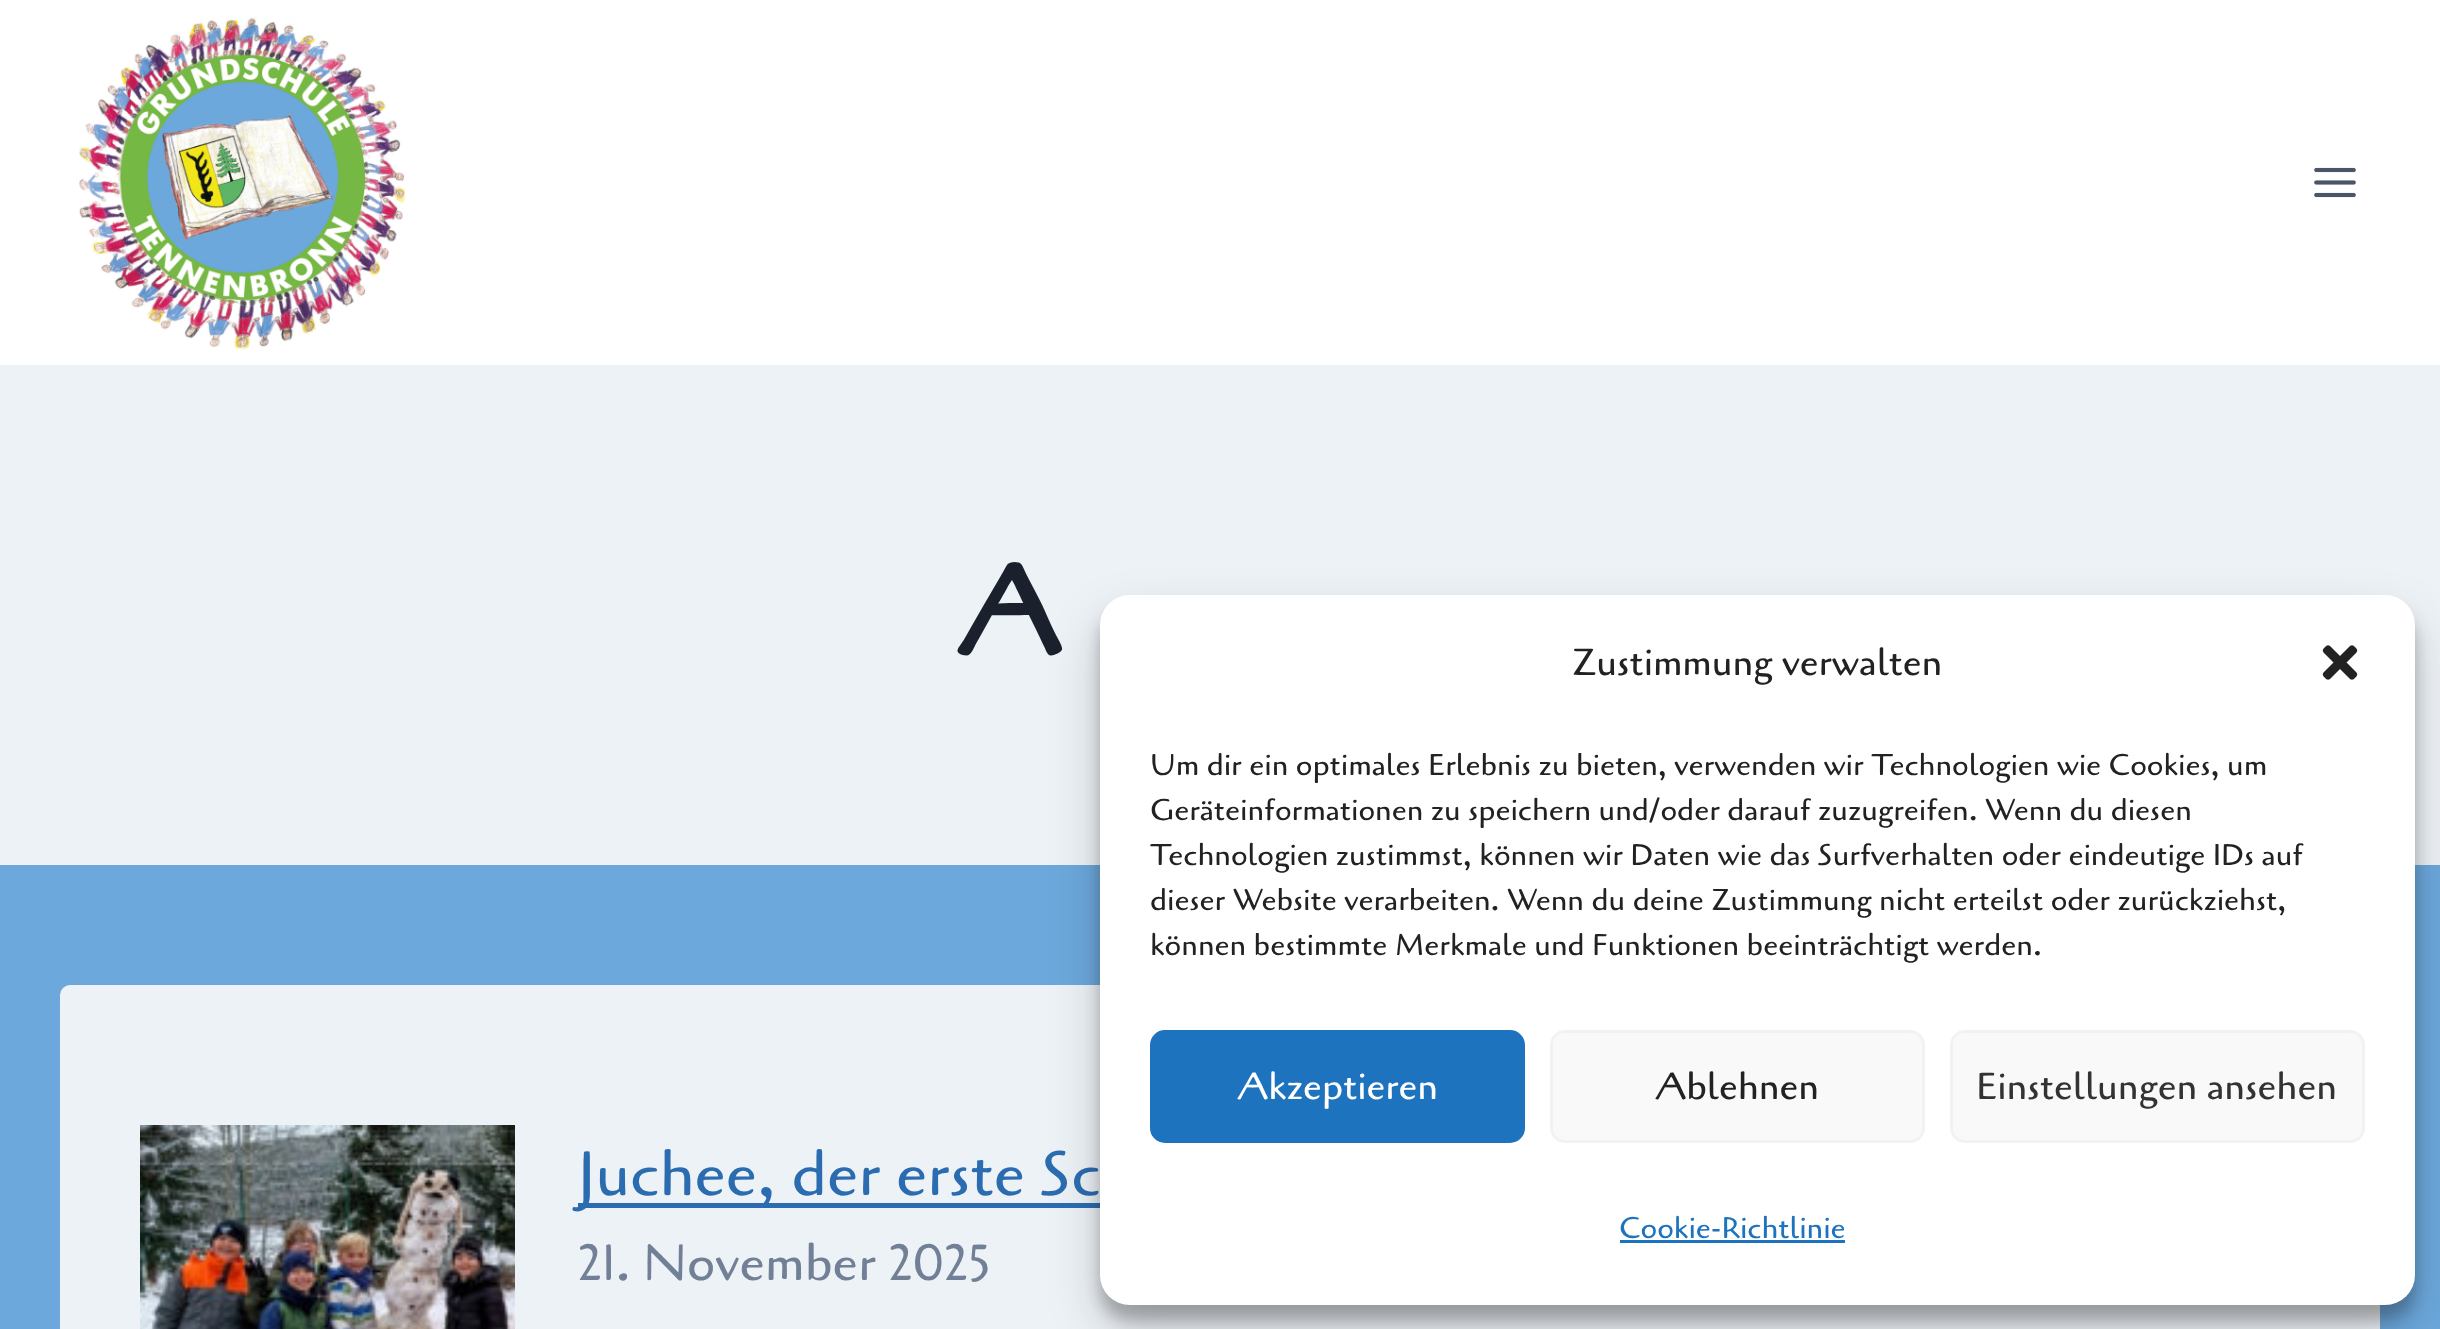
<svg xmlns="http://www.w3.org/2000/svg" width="2440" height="1329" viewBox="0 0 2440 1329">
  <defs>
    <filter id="blur1" x="-50%" y="-200%" width="200%" height="500%"><feGaussianBlur stdDeviation="7.5"/></filter>
    <filter id="blur2" x="-50%" y="-200%" width="200%" height="500%"><feGaussianBlur stdDeviation="25"/></filter>
  </defs>
  <rect width="100%" height="100%" fill="#6ca8dc"/>
  <rect x="0" y="0" width="2440" height="365" fill="#ffffff"/>
  <image x="79" y="16" width="327" height="335" href="img1.png"/>
  <image x="2314" y="167" width="42" height="31" href="img2.png"/>
  <rect x="0" y="365" width="2440" height="500" fill="#edf2f7"/>
  <text x="956" y="654" font-family="Cagliostro" font-size="125" font-weight="bold" fill="#1a202c">A</text>
  <rect x="60" y="985" width="2320" height="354" rx="10" fill="#edf2f7"/>
  <image x="140" y="1125" width="375" height="204" href="img3.png"/>
  <rect x="578" y="1203" width="522" height="5" fill="#2b6cb0"/>
  <text x="578" y="1195" font-family="Cagliostro" font-size="62.5" fill="#2b6cb0">Juchee, der erste Sc</text>
  <text x="578" y="1280" font-family="Cagliostro" font-size="50.75" fill="#718096">21. November 2025</text>
  <rect x="1100" y="610" width="1315" height="710" rx="30" fill="#000000" fill-opacity="0.23" filter="url(#blur1)"/>
  <rect x="1100" y="620" width="1315" height="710" rx="30" fill="#000000" fill-opacity="0.19" filter="url(#blur2)"/>
  <rect x="1100" y="595" width="1315" height="710" rx="30" fill="#ffffff"/>
  <text x="1572" y="675" font-family="Cagliostro" font-size="37.5" fill="#222222">Zustimmung verwalten</text>
  <image x="2322" y="645" width="36" height="35" href="img4.png"/>
  <text x="1150" y="775" font-family="Cagliostro" font-size="30" fill="#222222">Um dir ein optimales Erlebnis zu bieten, verwenden wir Technologien wie Cookies, um</text>
  <text x="1150" y="820" font-family="Cagliostro" font-size="30" fill="#222222">Geräteinformationen zu speichern und/oder darauf zuzugreifen. Wenn du diesen</text>
  <text x="1150" y="865" font-family="Cagliostro" font-size="30" fill="#222222">Technologien zustimmst, können wir Daten wie das Surfverhalten oder eindeutige IDs auf</text>
  <text x="1150" y="910" font-family="Cagliostro" font-size="30" fill="#222222">dieser Website verarbeiten. Wenn du deine Zustimmung nicht erteilst oder zurückziehst,</text>
  <text x="1150" y="955" font-family="Cagliostro" font-size="30" fill="#222222">können bestimmte Merkmale und Funktionen beeinträchtigt werden.</text>
  <rect x="1151.5" y="1031.5" width="372" height="110" rx="13.5" fill="#1e73be" stroke="#1e73be" stroke-width="3"/>
  <text x="1237" y="1099" font-family="Cagliostro" font-size="37.5" fill="#ffffff">Akzeptieren</text>
  <rect x="1551.5" y="1031.5" width="372" height="110" rx="13.5" fill="#f9f9f9" stroke="#f2f2f2" stroke-width="3"/>
  <text x="1655" y="1099" font-family="Cagliostro" font-size="37.5" fill="#222222">Ablehnen</text>
  <rect x="1951.5" y="1031.5" width="412" height="110" rx="13.5" fill="#f9f9f9" stroke="#f2f2f2" stroke-width="3"/>
  <text x="1976" y="1099" font-family="Cagliostro" font-size="37.5" fill="#333333">Einstellungen ansehen</text>
  <text x="1619" y="1238" font-family="Cagliostro" font-size="30" fill="#1e73be">Cookie-Richtlinie</text>
  <rect x="1620" y="1240" width="225" height="3" fill="#1e73be"/>
</svg>
